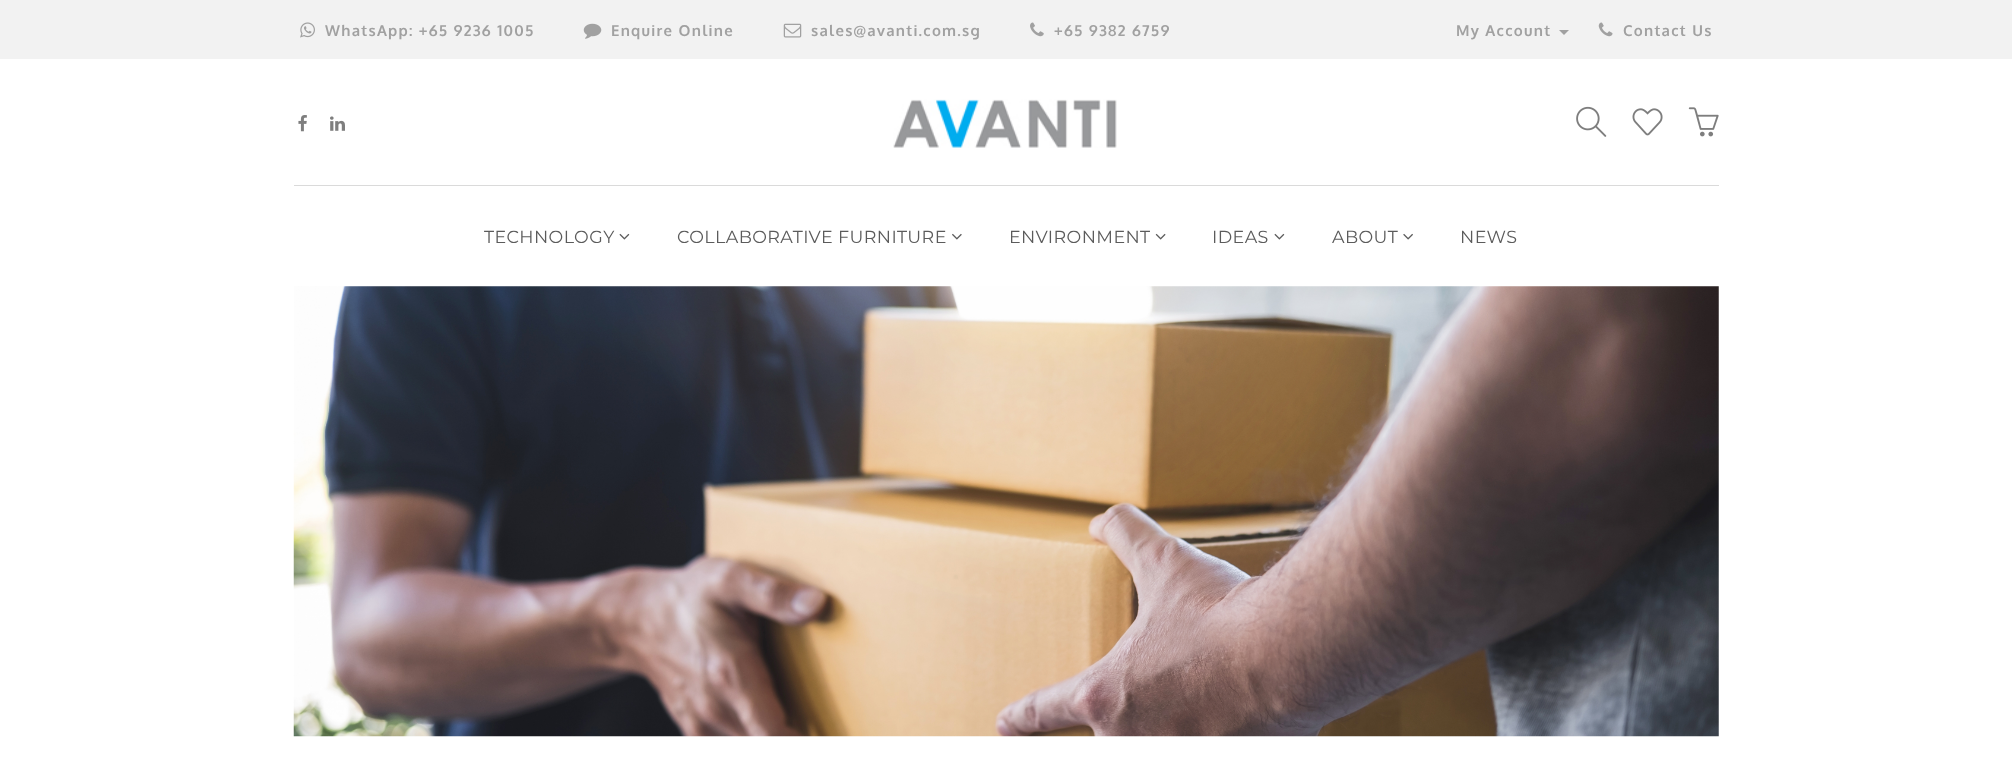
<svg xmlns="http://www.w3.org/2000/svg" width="2012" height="766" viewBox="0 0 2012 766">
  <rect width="100%" height="100%" fill="#ffffff"/>
  <rect x="0" y="0" width="2012" height="59" fill="#f2f2f2"/>
  <image x="300" y="22" width="15" height="16" href="img1.png"/>
  <text x="325" y="36" font-family="Oxygen" font-size="15" font-weight="bold" letter-spacing="1.25" fill="#a1a1a1">WhatsApp: +65 9236 1005</text>
  <image x="583" y="23" width="19" height="16" href="img2.png"/>
  <text x="611" y="36" font-family="Oxygen" font-size="15" font-weight="bold" letter-spacing="1.25" fill="#a1a1a1">Enquire Online</text>
  <image x="783" y="23" width="19" height="15" href="img3.png"/>
  <text x="811" y="36" font-family="Oxygen" font-size="15" font-weight="bold" letter-spacing="1.25" fill="#a1a1a1">sales@avanti.com.sg</text>
  <image x="1030" y="22" width="14" height="15" href="img4.png"/>
  <text x="1054" y="36" font-family="Oxygen" font-size="15" font-weight="bold" letter-spacing="1.25" fill="#a1a1a1">+65 9382 6759</text>
  <text x="1456" y="36" font-family="Oxygen" font-size="15" font-weight="bold" letter-spacing="1.25" fill="#a1a1a1">My Account</text>
  <path d="M1559 30H1569L1564 35Z" fill="#a1a1a1"/>
  <image x="1598" y="22" width="15" height="15" href="img5.png"/>
  <text x="1623" y="36" font-family="Oxygen" font-size="15" font-weight="bold" letter-spacing="1.25" fill="#a1a1a1">Contact Us</text>
  <rect x="294" y="185" width="1425" height="1" fill="#dadada"/>
  <image x="893" y="99" width="224" height="49" href="img6.png"/>
  <image x="298" y="115" width="9" height="17" href="img7.png"/>
  <image x="330" y="116" width="15" height="15" href="img8.png"/>
  <image x="1576" y="106" width="31" height="31" href="img9.png"/>
  <image x="1632" y="108" width="31" height="28" href="img10.png"/>
  <image x="1688" y="107" width="31" height="30" href="img11.png"/>
  <text x="484" y="243" font-family="Montserrat" font-size="17.5" letter-spacing="0.4" fill="#5b5b5b">TECHNOLOGY</text>
  <image x="619" y="233" width="11" height="7" href="img12.png"/>
  <text x="677" y="243" font-family="Montserrat" font-size="17.5" letter-spacing="0.4" fill="#5b5b5b">COLLABORATIVE FURNITURE</text>
  <image x="952" y="233" width="10" height="7" href="img13.png"/>
  <text x="1009" y="243" font-family="Montserrat" font-size="17.5" letter-spacing="0.4" fill="#5b5b5b">ENVIRONMENT</text>
  <image x="1155" y="233" width="11" height="7" href="img14.png"/>
  <text x="1212" y="243" font-family="Montserrat" font-size="17.5" letter-spacing="0.4" fill="#5b5b5b">IDEAS</text>
  <image x="1274" y="233" width="11" height="7" href="img12.png"/>
  <text x="1332" y="243" font-family="Montserrat" font-size="17.5" letter-spacing="0.4" fill="#5b5b5b">ABOUT</text>
  <image x="1403" y="233" width="10" height="7" href="img15.png"/>
  <text x="1460" y="243" font-family="Montserrat" font-size="17.5" letter-spacing="0.4" fill="#5b5b5b">NEWS</text>
  <image x="293" y="286" width="1426" height="451" href="img16.png"/>
</svg>
